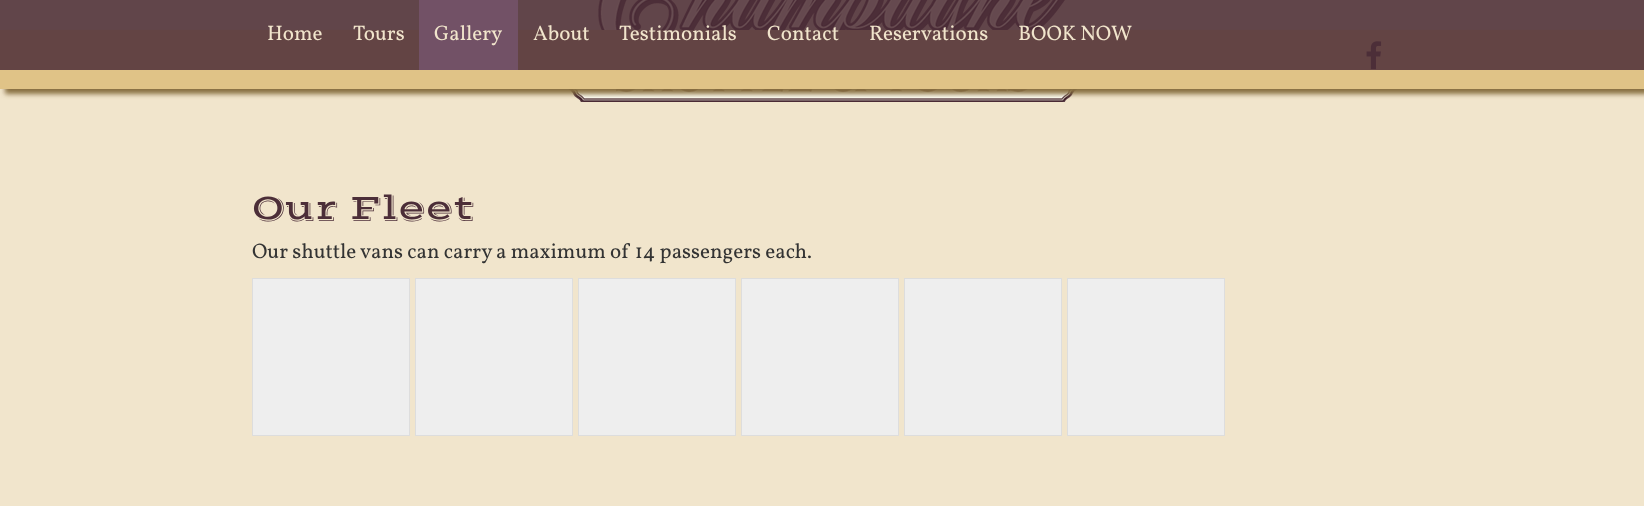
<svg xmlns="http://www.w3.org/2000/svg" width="1644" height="506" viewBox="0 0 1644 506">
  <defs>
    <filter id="blur1" x="-50%" y="-200%" width="200%" height="500%"><feGaussianBlur stdDeviation="2.5"/></filter>
  </defs>
  <rect width="100%" height="100%" fill="#d8c8ab"/>
  <rect x="0" y="89" width="1644" height="417" fill="#f1e5cc"/>
  <image x="568" y="0" width="510" height="102" href="img1.png"/>
  <rect x="5" y="35" width="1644" height="59" fill="#886e41" filter="url(#blur1)"/>
  <rect x="0" y="30" width="1644" height="59" fill="#e0c387"/>
  <image x="1366" y="41" width="16" height="29" href="img2.png"/>
  <rect x="0" y="0" width="1644" height="70" fill="#4c2e38" fill-opacity="0.85"/>
  <text x="267" y="40" font-family="Vollkorn" font-size="21" fill="#f1e5cc">Home</text>
  <text x="353" y="40" font-family="Vollkorn" font-size="21" fill="#f1e5cc">Tours</text>
  <rect x="419" y="0" width="99" height="70" fill="#725166"/>
  <text x="434" y="40" font-family="Vollkorn" font-size="21" fill="#f1e5cc">Gallery</text>
  <text x="533" y="40" font-family="Vollkorn" font-size="21" fill="#f1e5cc">About</text>
  <text x="619" y="40" font-family="Vollkorn" font-size="21" fill="#f1e5cc">Testimonials</text>
  <text x="767" y="40" font-family="Vollkorn" font-size="21" fill="#f1e5cc">Contact</text>
  <text x="869" y="40" font-family="Vollkorn" font-size="21" fill="#f1e5cc">Reservations</text>
  <text x="1018" y="40" font-family="Vollkorn" font-size="21" fill="#f1e5cc">BOOK NOW</text>
  <text x="252" y="219" font-family="Vast Shadow" font-size="36" fill="#4c2e38">Our Fleet</text>
  <text x="252" y="258" font-family="Vollkorn" font-size="21" fill="#333333">Our shuttle vans can carry a maximum of 14 passengers each.</text>
  <rect x="252.5" y="278.5" width="157" height="157" fill="#eeeeee" stroke="#dddddd"/>
  <rect x="415.5" y="278.5" width="157" height="157" fill="#eeeeee" stroke="#dddddd"/>
  <rect x="578.5" y="278.5" width="157" height="157" fill="#eeeeee" stroke="#dddddd"/>
  <rect x="741.5" y="278.5" width="157" height="157" fill="#eeeeee" stroke="#dddddd"/>
  <rect x="904.5" y="278.5" width="157" height="157" fill="#eeeeee" stroke="#dddddd"/>
  <rect x="1067.5" y="278.5" width="157" height="157" fill="#eeeeee" stroke="#dddddd"/>
</svg>
